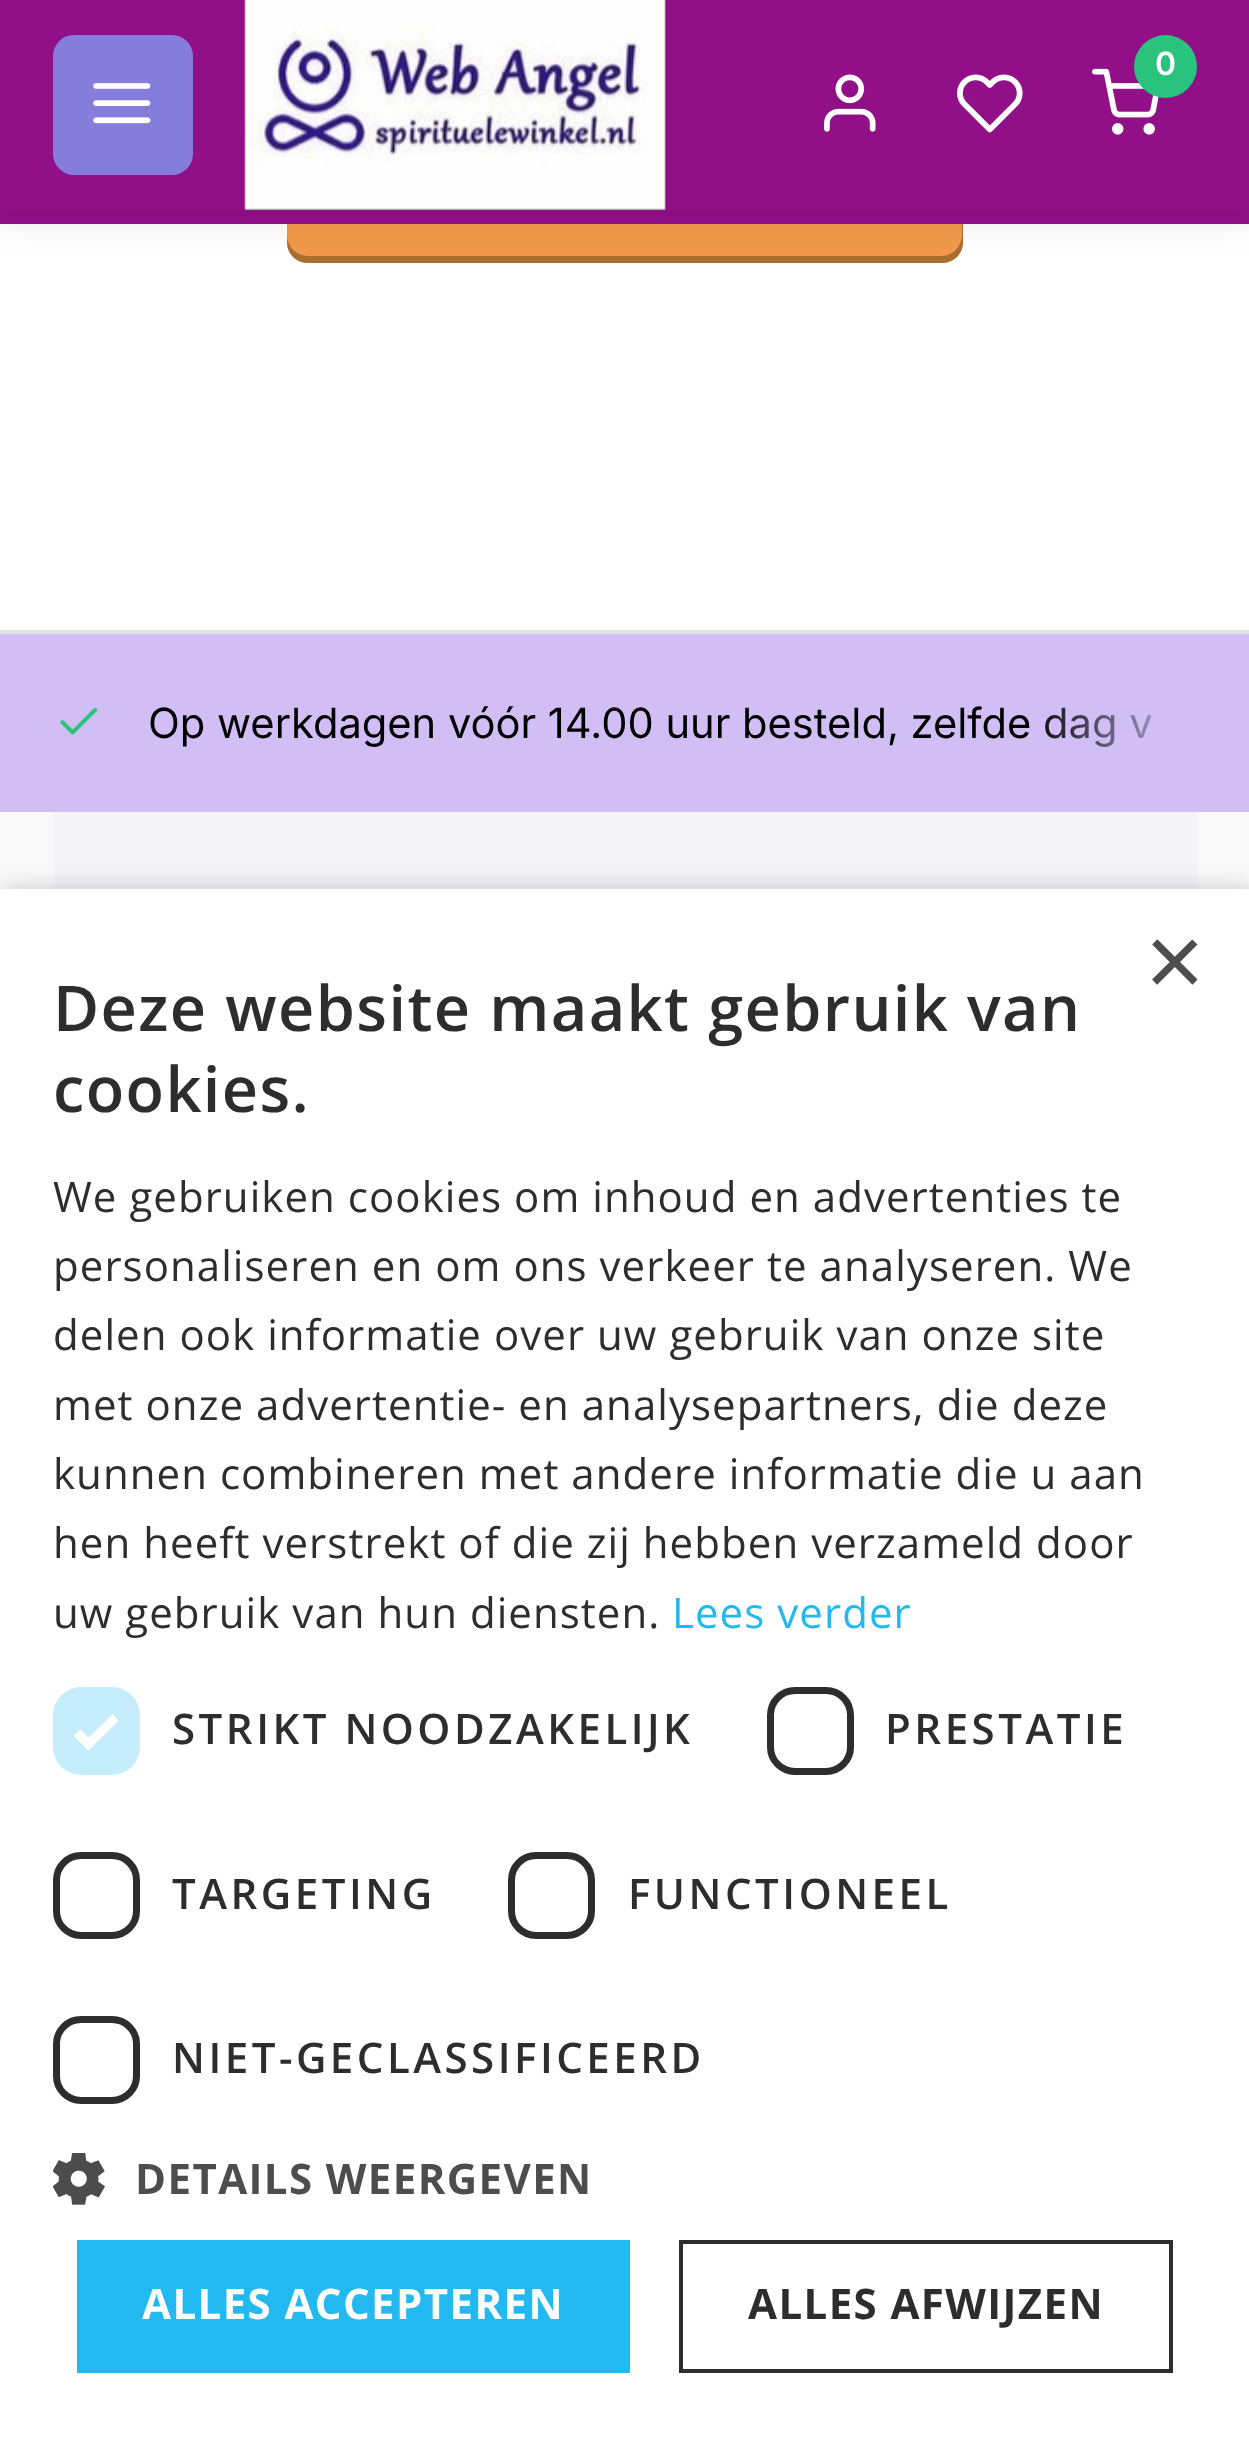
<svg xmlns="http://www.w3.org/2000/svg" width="1249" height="2440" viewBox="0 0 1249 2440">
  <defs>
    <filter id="blur1" x="-50%" y="-200%" width="200%" height="500%"><feGaussianBlur stdDeviation="17.5"/></filter>
    <filter id="blur2" x="-50%" y="-200%" width="200%" height="500%"><feGaussianBlur stdDeviation="7"/></filter>
    <linearGradient id="g1" gradientUnits="userSpaceOnUse" x1="1026" y1="723" x2="1197" y2="723"><stop offset="0" stop-color="#d1bef5" stop-opacity="0"/><stop offset="1" stop-color="#d1bef5"/></linearGradient>
    <filter id="blur3" x="-50%" y="-200%" width="200%" height="500%"><feGaussianBlur stdDeviation="14"/></filter>
  </defs>
  <rect width="100%" height="100%" fill="#ffffff"/>
  <rect x="287" y="109" width="676" height="154" rx="21" fill="#f2994a"/>
  <path d="M287 234V242C287 254 296 263 308 263H942C954 263 963 254 963 242V130L962 124V234C962 246 953 256 942 256H308C296 256 287 246 287 234Z" fill="#a96e30"/>
  <rect x="0" y="18" width="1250" height="210" fill="#000000" fill-opacity="0.05" filter="url(#blur1)"/>
  <rect x="0" y="210" width="1249" height="14" fill="#910f87"/>
  <rect x="0" y="11" width="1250" height="210" fill="#000000" fill-opacity="0.05" filter="url(#blur2)"/>
  <rect x="0" y="0" width="1249" height="210" fill="#910f87"/>
  <rect x="53" y="35" width="140" height="140" rx="21" fill="#867cdb"/>
  <image x="93" y="83" width="58" height="41" href="img1.png"/>
  <rect x="245" y="0" width="420" height="210" fill="#6a6973"/>
  <image x="244" y="0" width="422" height="210" href="img2.png"/>
  <image x="1092" y="68" width="67" height="67" href="img3.png"/>
  <circle cx="1165.5" cy="66.5" r="31.5" fill="#2ac37d"/>
  <text x="1155" y="75" font-family="Inter" font-size="32" font-weight="600" fill="#ffffff">0</text>
  <image x="824" y="74" width="52" height="58" href="img4.png"/>
  <image x="957" y="74" width="66" height="59" href="img5.png"/>
  <rect x="0" y="634" width="1249" height="178" fill="#d1bef5"/>
  <rect x="0" y="630" width="1249" height="4" fill="#e1e1e1"/>
  <image x="60" y="707" width="38" height="28" href="img6.png"/>
  <text x="148" y="738" font-family="Inter" font-size="41.65" fill="#000000">Op werkdagen vóór 14.00 uur besteld, zelfde dag v</text>
  <rect x="1045" y="707" width="107" height="40" fill="url(#g1)"/>
  <rect x="0" y="812" width="1249" height="77" fill="#f9f9f9"/>
  <rect x="53" y="812" width="1144" height="77" fill="#f4f4f6"/>
  <rect x="4" y="896" width="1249" height="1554" fill="#000000" fill-opacity="0.35" filter="url(#blur3)"/>
  <rect x="0" y="889" width="1249" height="1551" fill="#ffffff"/>
  <text x="1145" y="996" font-family="Liberation Sans" font-size="102" fill="#4d4d4d">×</text>
  <text x="53" y="1031" font-family="Open Sans" font-size="63" font-weight="600" letter-spacing="1.4" fill="#2d2d2d">Deze website maakt gebruik van</text>
  <text x="53" y="1112" font-family="Open Sans" font-size="63" font-weight="600" letter-spacing="1.4" fill="#2d2d2d">cookies.</text>
  <text x="53" y="1212" font-family="Open Sans" font-size="42" letter-spacing="1.05" fill="#2d2d2d">We gebruiken cookies om inhoud en advertenties te</text>
  <text x="53" y="1281" font-family="Open Sans" font-size="42" letter-spacing="1.05" fill="#2d2d2d">personaliseren en om ons verkeer te analyseren. We</text>
  <text x="53" y="1350" font-family="Open Sans" font-size="42" letter-spacing="1.05" fill="#2d2d2d">delen ook informatie over uw gebruik van onze site</text>
  <text x="53" y="1420" font-family="Open Sans" font-size="42" letter-spacing="1.05" fill="#2d2d2d">met onze advertentie- en analysepartners, die deze</text>
  <text x="53" y="1489" font-family="Open Sans" font-size="42" letter-spacing="1.05" fill="#2d2d2d">kunnen combineren met andere informatie die u aan</text>
  <text x="53" y="1558" font-family="Open Sans" font-size="42" letter-spacing="1.05" fill="#2d2d2d">hen heeft verstrekt of die zij hebben verzameld door</text>
  <text x="53" y="1628" font-family="Open Sans" font-size="42" letter-spacing="1.05" fill="#2d2d2d">uw gebruik van hun diensten.</text>
  <text x="672" y="1628" font-family="Open Sans" font-size="42" letter-spacing="1.05" fill="#22b8f0">Lees verder</text>
  <rect x="53" y="1687" width="87" height="88" rx="28" fill="#c6edfb"/>
  <path d="M77 1732.5L88.5 1744L115.5 1717.5" fill="none" stroke="#ffffff" stroke-width="9.2"/>
  <text x="172" y="1744" font-family="Open Sans" font-size="42" font-weight="600" letter-spacing="3.5" fill="#2d2d2d">STRIKT NOODZAKELIJK</text>
  <rect x="770.5" y="1690.5" width="80" height="81" rx="24.5" fill="none" stroke="#2d2d2d" stroke-width="7"/>
  <text x="885" y="1744" font-family="Open Sans" font-size="42" font-weight="600" letter-spacing="3.5" fill="#2d2d2d">PRESTATIE</text>
  <rect x="56.5" y="1855.5" width="80" height="80" rx="24.5" fill="none" stroke="#2d2d2d" stroke-width="7"/>
  <text x="172" y="1909" font-family="Open Sans" font-size="42" font-weight="600" letter-spacing="3.5" fill="#2d2d2d">TARGETING</text>
  <rect x="511.5" y="1855.5" width="80" height="80" rx="24.5" fill="none" stroke="#2d2d2d" stroke-width="7"/>
  <text x="628" y="1909" font-family="Open Sans" font-size="42" font-weight="600" letter-spacing="3.5" fill="#2d2d2d">FUNCTIONEEL</text>
  <rect x="56.5" y="2019.5" width="80" height="81" rx="24.5" fill="none" stroke="#2d2d2d" stroke-width="7"/>
  <text x="172" y="2073" font-family="Open Sans" font-size="42" font-weight="600" letter-spacing="3.5" fill="#2d2d2d">NIET-GECLASSIFICEERD</text>
  <image x="53" y="2153" width="52" height="52" href="img7.png"/>
  <text x="135" y="2194" font-family="Open Sans" font-size="42" font-weight="bold" letter-spacing="1.4" fill="#4d4d4d">DETAILS WEERGEVEN</text>
  <rect x="77" y="2240" width="553" height="133" fill="#22b8f0"/>
  <text x="142" y="2319" font-family="Open Sans" font-size="42" font-weight="bold" letter-spacing="1.4" fill="#ffffff">ALLES ACCEPTEREN</text>
  <rect x="681" y="2242" width="490" height="129" fill="none" stroke="#2d2d2d" stroke-width="4"/>
  <text x="748" y="2319" font-family="Open Sans" font-size="42" font-weight="bold" letter-spacing="1.4" fill="#2d2d2d">ALLES AFWIJZEN</text>
</svg>
